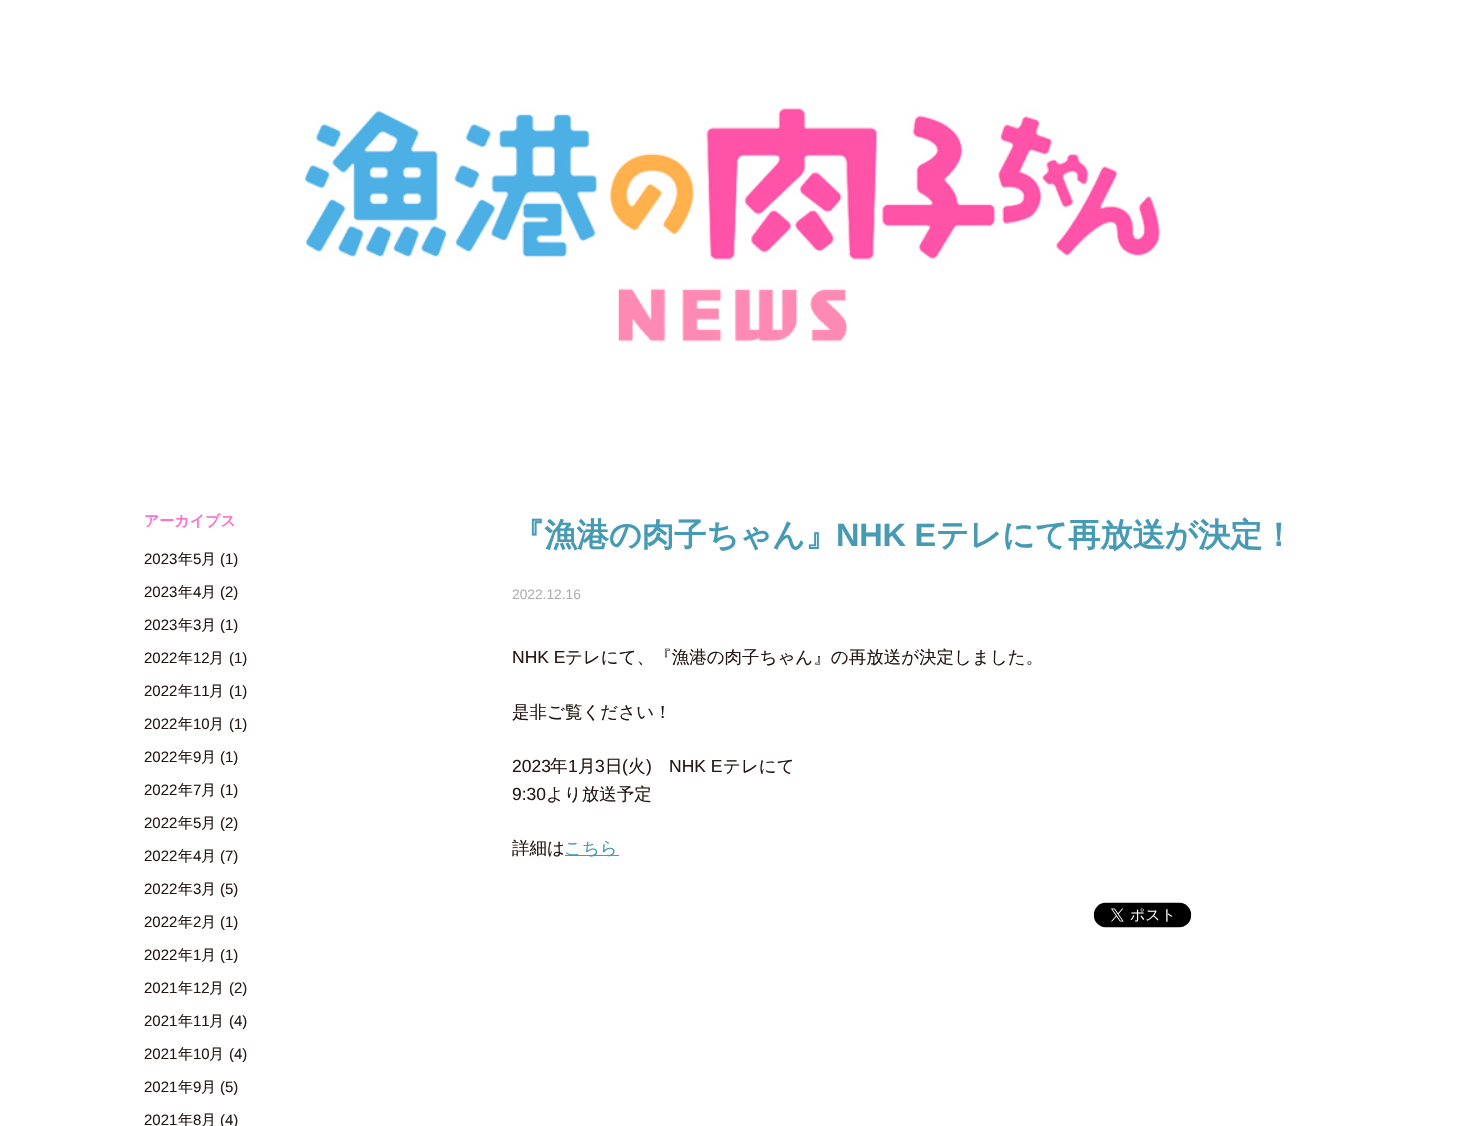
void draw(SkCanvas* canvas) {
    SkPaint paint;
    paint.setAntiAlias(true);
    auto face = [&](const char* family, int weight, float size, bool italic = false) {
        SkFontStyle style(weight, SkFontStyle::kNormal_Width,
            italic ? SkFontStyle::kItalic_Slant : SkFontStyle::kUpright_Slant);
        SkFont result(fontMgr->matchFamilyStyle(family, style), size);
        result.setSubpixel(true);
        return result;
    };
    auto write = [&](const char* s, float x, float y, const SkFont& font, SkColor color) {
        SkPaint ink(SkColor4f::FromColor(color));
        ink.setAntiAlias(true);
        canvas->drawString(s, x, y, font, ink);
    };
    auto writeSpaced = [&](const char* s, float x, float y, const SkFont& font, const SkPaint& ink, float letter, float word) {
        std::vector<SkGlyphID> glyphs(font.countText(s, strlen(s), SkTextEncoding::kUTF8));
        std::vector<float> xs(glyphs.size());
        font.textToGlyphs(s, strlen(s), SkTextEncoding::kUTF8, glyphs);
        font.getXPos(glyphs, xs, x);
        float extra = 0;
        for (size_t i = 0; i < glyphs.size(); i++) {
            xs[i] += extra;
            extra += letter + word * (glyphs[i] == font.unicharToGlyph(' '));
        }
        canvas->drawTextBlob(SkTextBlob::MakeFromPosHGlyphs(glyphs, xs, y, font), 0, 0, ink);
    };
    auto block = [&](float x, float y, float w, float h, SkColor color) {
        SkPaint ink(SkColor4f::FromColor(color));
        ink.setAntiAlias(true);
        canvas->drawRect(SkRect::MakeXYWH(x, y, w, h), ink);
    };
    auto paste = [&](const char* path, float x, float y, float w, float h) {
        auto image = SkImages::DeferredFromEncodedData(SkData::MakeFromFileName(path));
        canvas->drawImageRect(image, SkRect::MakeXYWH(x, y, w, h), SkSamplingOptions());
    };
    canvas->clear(SK_ColorWHITE);
    paste("pic1.png", 304, 107, 857, 235);
    auto kFont1 = face("WenQuanYi Zen Hei", 700, 15);
    write("アーカイブス", 144, 526, kFont1, SkColorSetRGB(255, 110, 201));
    auto kFont2 = face("Liberation Sans", 400, 15);
    write("2023", 144, 564, kFont2, SkColorSetRGB(35, 24, 22));
    auto kFont3 = face("WenQuanYi Zen Hei", 500, 15);
    write("年", 178, 564, kFont3, SkColorSetRGB(35, 24, 22));
    write("5", 193, 564, kFont2, SkColorSetRGB(35, 24, 22));
    write("月", 201, 564, kFont3, SkColorSetRGB(35, 24, 22));
    write("(1)", 220, 564, kFont2, SkColorSetRGB(35, 24, 22));
    write("2023", 144, 597, kFont2, SkColorSetRGB(35, 24, 22));
    write("年", 178, 597, kFont3, SkColorSetRGB(35, 24, 22));
    write("4", 193, 597, kFont2, SkColorSetRGB(35, 24, 22));
    write("月", 201, 597, kFont3, SkColorSetRGB(35, 24, 22));
    write("(2)", 220, 597, kFont2, SkColorSetRGB(35, 24, 22));
    write("2023", 144, 630, kFont2, SkColorSetRGB(35, 24, 22));
    write("年", 178, 630, kFont3, SkColorSetRGB(35, 24, 22));
    write("3", 193, 630, kFont2, SkColorSetRGB(35, 24, 22));
    write("月", 201, 630, kFont3, SkColorSetRGB(35, 24, 22));
    write("(1)", 220, 630, kFont2, SkColorSetRGB(35, 24, 22));
    write("2022", 144, 663, kFont2, SkColorSetRGB(35, 24, 22));
    write("年", 178, 663, kFont3, SkColorSetRGB(35, 24, 22));
    write("12", 193, 663, kFont2, SkColorSetRGB(35, 24, 22));
    write("月", 209, 663, kFont3, SkColorSetRGB(35, 24, 22));
    write("(1)", 229, 663, kFont2, SkColorSetRGB(35, 24, 22));
    write("2022", 144, 696, kFont2, SkColorSetRGB(35, 24, 22));
    write("年", 178, 696, kFont3, SkColorSetRGB(35, 24, 22));
    write("11", 193, 696, kFont2, SkColorSetRGB(35, 24, 22));
    write("月", 209, 696, kFont3, SkColorSetRGB(35, 24, 22));
    write("(1)", 229, 696, kFont2, SkColorSetRGB(35, 24, 22));
    write("2022", 144, 729, kFont2, SkColorSetRGB(35, 24, 22));
    write("年", 178, 729, kFont3, SkColorSetRGB(35, 24, 22));
    write("10", 193, 729, kFont2, SkColorSetRGB(35, 24, 22));
    write("月", 209, 729, kFont3, SkColorSetRGB(35, 24, 22));
    write("(1)", 229, 729, kFont2, SkColorSetRGB(35, 24, 22));
    write("2022", 144, 762, kFont2, SkColorSetRGB(35, 24, 22));
    write("年", 178, 762, kFont3, SkColorSetRGB(35, 24, 22));
    write("9", 193, 762, kFont2, SkColorSetRGB(35, 24, 22));
    write("月", 201, 762, kFont3, SkColorSetRGB(35, 24, 22));
    write("(1)", 220, 762, kFont2, SkColorSetRGB(35, 24, 22));
    write("2022", 144, 795, kFont2, SkColorSetRGB(35, 24, 22));
    write("年", 178, 795, kFont3, SkColorSetRGB(35, 24, 22));
    write("7", 193, 795, kFont2, SkColorSetRGB(35, 24, 22));
    write("月", 201, 795, kFont3, SkColorSetRGB(35, 24, 22));
    write("(1)", 220, 795, kFont2, SkColorSetRGB(35, 24, 22));
    write("2022", 144, 828, kFont2, SkColorSetRGB(35, 24, 22));
    write("年", 178, 828, kFont3, SkColorSetRGB(35, 24, 22));
    write("5", 193, 828, kFont2, SkColorSetRGB(35, 24, 22));
    write("月", 201, 828, kFont3, SkColorSetRGB(35, 24, 22));
    write("(2)", 220, 828, kFont2, SkColorSetRGB(35, 24, 22));
    write("2022", 144, 861, kFont2, SkColorSetRGB(35, 24, 22));
    write("年", 178, 861, kFont3, SkColorSetRGB(35, 24, 22));
    write("4", 193, 861, kFont2, SkColorSetRGB(35, 24, 22));
    write("月", 201, 861, kFont3, SkColorSetRGB(35, 24, 22));
    write("(7)", 220, 861, kFont2, SkColorSetRGB(35, 24, 22));
    write("2022", 144, 894, kFont2, SkColorSetRGB(35, 24, 22));
    write("年", 178, 894, kFont3, SkColorSetRGB(35, 24, 22));
    write("3", 193, 894, kFont2, SkColorSetRGB(35, 24, 22));
    write("月", 201, 894, kFont3, SkColorSetRGB(35, 24, 22));
    write("(5)", 220, 894, kFont2, SkColorSetRGB(35, 24, 22));
    write("2022", 144, 927, kFont2, SkColorSetRGB(35, 24, 22));
    write("年", 178, 927, kFont3, SkColorSetRGB(35, 24, 22));
    write("2", 193, 927, kFont2, SkColorSetRGB(35, 24, 22));
    write("月", 201, 927, kFont3, SkColorSetRGB(35, 24, 22));
    write("(1)", 220, 927, kFont2, SkColorSetRGB(35, 24, 22));
    write("2022", 144, 960, kFont2, SkColorSetRGB(35, 24, 22));
    write("年", 178, 960, kFont3, SkColorSetRGB(35, 24, 22));
    write("1", 193, 960, kFont2, SkColorSetRGB(35, 24, 22));
    write("月", 201, 960, kFont3, SkColorSetRGB(35, 24, 22));
    write("(1)", 220, 960, kFont2, SkColorSetRGB(35, 24, 22));
    write("2021", 144, 993, kFont2, SkColorSetRGB(35, 24, 22));
    write("年", 178, 993, kFont3, SkColorSetRGB(35, 24, 22));
    write("12", 193, 993, kFont2, SkColorSetRGB(35, 24, 22));
    write("月", 209, 993, kFont3, SkColorSetRGB(35, 24, 22));
    write("(2)", 229, 993, kFont2, SkColorSetRGB(35, 24, 22));
    write("2021", 144, 1026, kFont2, SkColorSetRGB(35, 24, 22));
    write("年", 178, 1026, kFont3, SkColorSetRGB(35, 24, 22));
    write("11", 193, 1026, kFont2, SkColorSetRGB(35, 24, 22));
    write("月", 209, 1026, kFont3, SkColorSetRGB(35, 24, 22));
    write("(4)", 229, 1026, kFont2, SkColorSetRGB(35, 24, 22));
    write("2021", 144, 1059, kFont2, SkColorSetRGB(35, 24, 22));
    write("年", 178, 1059, kFont3, SkColorSetRGB(35, 24, 22));
    write("10", 193, 1059, kFont2, SkColorSetRGB(35, 24, 22));
    write("月", 209, 1059, kFont3, SkColorSetRGB(35, 24, 22));
    write("(4)", 229, 1059, kFont2, SkColorSetRGB(35, 24, 22));
    write("2021", 144, 1092, kFont2, SkColorSetRGB(35, 24, 22));
    write("年", 178, 1092, kFont3, SkColorSetRGB(35, 24, 22));
    write("9", 193, 1092, kFont2, SkColorSetRGB(35, 24, 22));
    write("月", 201, 1092, kFont3, SkColorSetRGB(35, 24, 22));
    write("(5)", 220, 1092, kFont2, SkColorSetRGB(35, 24, 22));
    write("2021", 144, 1125, kFont2, SkColorSetRGB(35, 24, 22));
    write("年", 178, 1125, kFont3, SkColorSetRGB(35, 24, 22));
    write("8", 193, 1125, kFont2, SkColorSetRGB(35, 24, 22));
    write("月", 201, 1125, kFont3, SkColorSetRGB(35, 24, 22));
    write("(4)", 220, 1125, kFont2, SkColorSetRGB(35, 24, 22));
    auto kFont4 = face("WenQuanYi Zen Hei", 700, 32.5f);
    paint.setColor(SkColorSetRGB(70, 154, 180));
    writeSpaced("『漁港の肉子ちゃん』", 512, 546, kFont4, paint, -0.25f, 0);
    auto kFont5 = face("Liberation Sans", 700, 32.5f);
    writeSpaced("NHK E", 836, 546, kFont5, paint, -0.25f, 0);
    writeSpaced("テレにて再放送が決定！", 936, 546, kFont4, paint, -0.25f, 0);
    auto kFont6 = face("Liberation Sans", 400, 13.75f);
    write("2022.12.16", 512, 599, kFont6, SkColorSetRGB(175, 175, 175));
    auto kFont7 = face("Liberation Sans", 400, 17.5f);
    write("NHK E", 512, 663, kFont7, SkColorSetRGB(35, 24, 22));
    auto kFont8 = face("WenQuanYi Zen Hei", 500, 17.5f);
    write("テレにて、『漁港の肉子ちゃん』の再放送が決定しました。", 565, 663, kFont8, SkColorSetRGB(35, 24, 22));
    write("是非ご覧ください！", 512, 718, kFont8, SkColorSetRGB(35, 24, 22));
    write("2023", 512, 772, kFont7, SkColorSetRGB(35, 24, 22));
    write("年", 550, 772, kFont8, SkColorSetRGB(35, 24, 22));
    write("1", 568, 772, kFont7, SkColorSetRGB(35, 24, 22));
    write("月", 578, 772, kFont8, SkColorSetRGB(35, 24, 22));
    write("3", 595, 772, kFont7, SkColorSetRGB(35, 24, 22));
    write("日", 605, 772, kFont8, SkColorSetRGB(35, 24, 22));
    write("(", 622, 772, kFont7, SkColorSetRGB(35, 24, 22));
    write("火", 628, 772, kFont8, SkColorSetRGB(35, 24, 22));
    write(")", 646, 772, kFont7, SkColorSetRGB(35, 24, 22));
    write("NHK E", 669, 772, kFont7, SkColorSetRGB(35, 24, 22));
    write("テレにて", 723, 772, kFont8, SkColorSetRGB(35, 24, 22));
    write("9:30", 512, 800, kFont7, SkColorSetRGB(35, 24, 22));
    write("より放送予定", 546, 800, kFont8, SkColorSetRGB(35, 24, 22));
    write("詳細は", 512, 854, kFont8, SkColorSetRGB(35, 24, 22));
    block(565, 855, 54, 1, SkColorSetRGB(70, 154, 180));
    write("こちら", 564, 854, kFont8, SkColorSetRGB(70, 154, 180));
    paste("pic2.png", 1093, 902, 99, 26);
}
